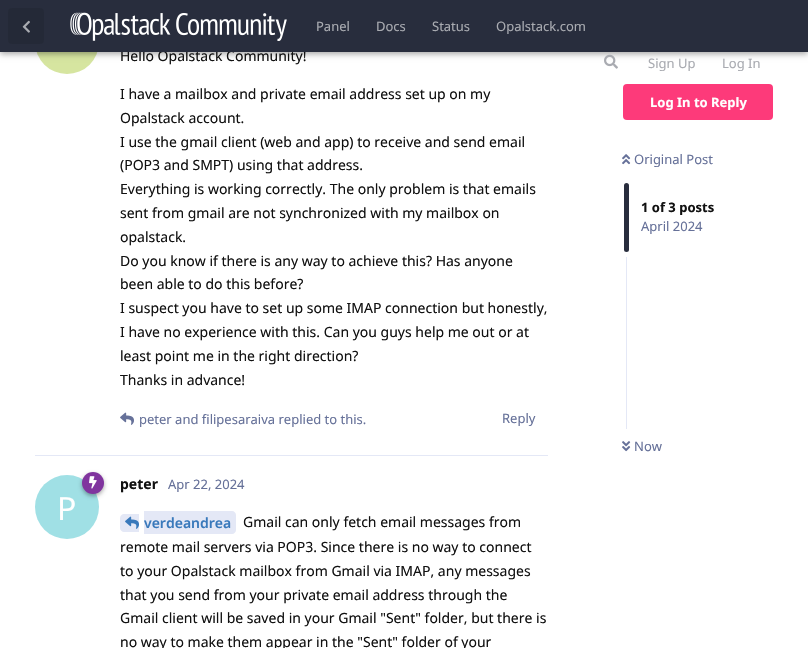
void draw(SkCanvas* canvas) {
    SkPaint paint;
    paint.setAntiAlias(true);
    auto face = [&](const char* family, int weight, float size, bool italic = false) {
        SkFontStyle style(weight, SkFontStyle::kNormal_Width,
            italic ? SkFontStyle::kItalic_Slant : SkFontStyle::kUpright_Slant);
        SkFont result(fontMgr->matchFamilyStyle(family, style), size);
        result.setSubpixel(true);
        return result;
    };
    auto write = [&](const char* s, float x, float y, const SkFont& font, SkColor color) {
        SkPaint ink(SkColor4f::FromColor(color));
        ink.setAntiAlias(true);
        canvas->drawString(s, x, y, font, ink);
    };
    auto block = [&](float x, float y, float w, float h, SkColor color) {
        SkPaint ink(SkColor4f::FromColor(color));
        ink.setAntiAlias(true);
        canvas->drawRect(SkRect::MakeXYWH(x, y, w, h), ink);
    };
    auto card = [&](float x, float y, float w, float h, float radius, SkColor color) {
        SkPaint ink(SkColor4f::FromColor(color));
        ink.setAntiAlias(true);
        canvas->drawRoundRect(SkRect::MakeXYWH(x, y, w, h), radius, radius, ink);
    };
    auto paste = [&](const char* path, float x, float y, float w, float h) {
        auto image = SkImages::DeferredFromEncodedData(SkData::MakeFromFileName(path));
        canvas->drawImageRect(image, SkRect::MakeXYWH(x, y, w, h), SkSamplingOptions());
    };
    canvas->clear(SK_ColorWHITE);
    paint.setColor(SkColorSetRGB(214, 229, 160));
    canvas->drawCircle(67, 42, 32, paint);
    paint.setColor(SkColorSetARGB(89, 0, 0, 0));
    paint.setMaskFilter(SkMaskFilter::MakeBlur(kNormal_SkBlurStyle, 3));
    canvas->drawRect(SkRect::MakeXYWH(0, 2, 808, 52), paint);
    paint.setMaskFilter(nullptr);
    auto kFont1 = face("Noto Sans", 400, 14);
    write("Hello Opalstack Community!", 120, 61, kFont1, SkColorSetRGB(17, 17, 17));
    block(0, 0, 808, 52, SkColorSetRGB(40, 45, 61));
    card(8, 8, 36, 36, 4, SkColorSetRGB(36, 41, 55));
    paste("pic1.png", 22, 20, 8, 13);
    paste("pic2.png", 70, 12, 217, 29);
    auto kFont2 = face("Noto Sans", 400, 13);
    write("Panel", 316, 31, kFont2, SkColorSetRGB(169, 171, 177));
    write("Docs", 376, 31, kFont2, SkColorSetRGB(169, 171, 177));
    write("Status", 432, 31, kFont2, SkColorSetRGB(169, 171, 177));
    write("Opalstack.com", 496, 31, kFont2, SkColorSetRGB(169, 171, 177));
    paste("pic3.png", 604, 54, 14, 15);
    write("Sign Up", 648, 68, kFont2, SkColorSetRGB(169, 171, 177));
    write("Log In", 722, 68, kFont2, SkColorSetRGB(169, 171, 177));
    block(35, 455, 513, 1, SkColorSetRGB(228, 232, 246));
    write("I have a mailbox and private email address set up on my", 120, 99, kFont1, SkColorSetRGB(17, 17, 17));
    write("Opalstack account.", 120, 123, kFont1, SkColorSetRGB(17, 17, 17));
    write("I use the gmail client (web and app) to receive and send email", 120, 147, kFont1, SkColorSetRGB(17, 17, 17));
    write("(POP3 and SMPT) using that address.", 120, 170, kFont1, SkColorSetRGB(17, 17, 17));
    write("Everything is working correctly. The only problem is that emails", 120, 194, kFont1, SkColorSetRGB(17, 17, 17));
    write("sent from gmail are not synchronized with my mailbox on", 120, 218, kFont1, SkColorSetRGB(17, 17, 17));
    write("opalstack.", 120, 242, kFont1, SkColorSetRGB(17, 17, 17));
    write("Do you know if there is any way to achieve this? Has anyone", 120, 266, kFont1, SkColorSetRGB(17, 17, 17));
    write("been able to do this before?", 120, 289, kFont1, SkColorSetRGB(17, 17, 17));
    write("I suspect you have to set up some IMAP connection but honestly,", 120, 313, kFont1, SkColorSetRGB(17, 17, 17));
    write("I have no experience with this. Can you guys help me out or at", 120, 337, kFont1, SkColorSetRGB(17, 17, 17));
    write("least point me in the right direction?", 120, 361, kFont1, SkColorSetRGB(17, 17, 17));
    write("Thanks in advance!", 120, 385, kFont1, SkColorSetRGB(17, 17, 17));
    paste("pic4.png", 120, 412, 14, 13);
    write("peter and filipesaraiva replied to this.", 139, 424, kFont2, SkColorSetRGB(102, 113, 153));
    write("Reply", 502, 423, kFont2, SkColorSetRGB(102, 113, 153));
    paint.setColor(SkColorSetRGB(160, 224, 229));
    canvas->drawCircle(67, 507, 32, paint);
    paint.setColor(SkColorSetARGB(89, 0, 0, 0));
    paint.setMaskFilter(SkMaskFilter::MakeBlur(kNormal_SkBlurStyle, 2));
    canvas->drawRoundRect(SkRect::MakeXYWH(82, 474, 22, 22), 11, 11, paint);
    paint.setMaskFilter(nullptr);
    paint.setColor(SkColorSetRGB(128, 52, 158));
    canvas->drawCircle(93, 483, 11, paint);
    paste("pic5.png", 89, 476, 8, 13);
    auto kFont3 = face("Noto Sans", 700, 14);
    write("peter", 120, 489, kFont3, SkColorSetRGB(17, 17, 17));
    auto kFont4 = face("Noto Sans", 400, 32);
    write("P", 57, 520, kFont4, SK_ColorWHITE);
    write("Apr 22, 2024", 168, 489, kFont2, SkColorSetRGB(102, 113, 153));
    paint.setColor(SkColorSetRGB(228, 232, 246));
    canvas->drawPath(SkPathBuilder().moveTo(124, 514).lineTo(139, 514).lineTo(139, 532).lineTo(124, 532).cubicTo(122, 532, 120, 530, 120, 528).lineTo(120, 518).cubicTo(120, 516, 122, 514, 124, 514).close().detach(), paint);
    canvas->drawPath(SkPathBuilder().moveTo(144, 511).lineTo(232, 511).cubicTo(234, 511, 236, 513, 236, 515).lineTo(236, 530).cubicTo(236, 532, 234, 534, 232, 534).lineTo(144, 534).close().detach(), paint);
    paste("pic6.png", 125, 516, 14, 13);
    auto kFont5 = face("Noto Sans", 600, 14);
    write("verdeandrea", 144, 528, kFont5, SkColorSetRGB(57, 121, 187));
    write("Gmail can only fetch email messages from", 243, 527, kFont1, SkColorSetRGB(17, 17, 17));
    write("remote mail servers via POP3. Since there is no way to connect", 120, 552, kFont1, SkColorSetRGB(17, 17, 17));
    write("to your Opalstack mailbox from Gmail via IMAP, any messages", 120, 576, kFont1, SkColorSetRGB(17, 17, 17));
    write("that you send from your private email address through the", 120, 600, kFont1, SkColorSetRGB(17, 17, 17));
    write("Gmail client will be saved in your Gmail \"Sent\" folder, but there is", 120, 623, kFont1, SkColorSetRGB(17, 17, 17));
    write("no way to make them appear in the \"Sent\" folder of your", 120, 647, kFont1, SkColorSetRGB(17, 17, 17));
    card(623, 84, 150, 36, 4, SkColorSetRGB(253, 58, 122));
    auto kFont6 = face("Noto Sans", 700, 13);
    write("Log In to Reply", 650, 107, kFont6, SK_ColorWHITE);
    paste("pic7.png", 622, 154, 9, 11);
    write("Original Post", 634, 164, kFont2, SkColorSetRGB(102, 113, 153));
    card(624, 183, 5, 69, 2.5f, SkColorSetRGB(40, 45, 61));
    write("1 of 3 posts", 641, 212, kFont6, SkColorSetRGB(17, 17, 17));
    write("April 2024", 641, 231, kFont2, SkColorSetRGB(102, 113, 153));
    block(626, 257, 1, 172, SkColorSetRGB(228, 232, 246));
    paste("pic8.png", 622, 441, 9, 11);
    write("Now", 634, 451, kFont2, SkColorSetRGB(102, 113, 153));
}
